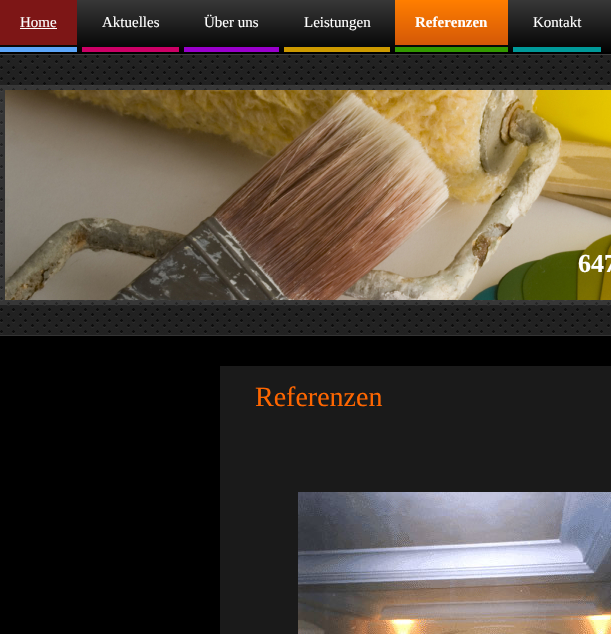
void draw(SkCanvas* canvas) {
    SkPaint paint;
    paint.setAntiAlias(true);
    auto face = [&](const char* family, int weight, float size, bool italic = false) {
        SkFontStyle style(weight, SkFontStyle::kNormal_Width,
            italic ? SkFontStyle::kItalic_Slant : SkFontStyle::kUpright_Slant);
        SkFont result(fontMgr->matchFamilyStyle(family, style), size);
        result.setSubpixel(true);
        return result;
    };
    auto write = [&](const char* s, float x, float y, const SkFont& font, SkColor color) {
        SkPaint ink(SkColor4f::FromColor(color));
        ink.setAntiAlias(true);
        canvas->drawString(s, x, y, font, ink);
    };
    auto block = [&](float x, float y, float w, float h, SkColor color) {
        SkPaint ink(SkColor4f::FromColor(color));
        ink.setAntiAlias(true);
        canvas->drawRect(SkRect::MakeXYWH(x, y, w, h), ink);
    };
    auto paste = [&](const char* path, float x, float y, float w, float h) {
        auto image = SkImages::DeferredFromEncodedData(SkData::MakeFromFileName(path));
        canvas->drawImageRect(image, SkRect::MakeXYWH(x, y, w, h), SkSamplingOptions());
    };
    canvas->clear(SK_ColorBLACK);
    {
        const SkColor colors[] = {SkColorSetRGB(56, 56, 56), SK_ColorBLACK};
        const float stops[] = {0, 1};
        const SkPoint ends[] = {{306, 0}, {306, 54}};
        paint.setShader(SkGradientShader::MakeLinear(ends, colors, stops, 2, SkTileMode::kClamp));
        paint.setAlpha(255);
    }
    canvas->drawRect(SkRect::MakeXYWH(0, 0, 611, 52), paint);
    block(0, 54, 611, 1, SkColorSetRGB(61, 61, 61));
    block(0, 47, 77, 5, SkColorSetRGB(92, 166, 250));
    block(0, 0, 77, 45, SkColorSetRGB(125, 22, 22));
    auto kFont1 = face("Liberation Serif", 400, 15);
    write("Home", 20, 27, kFont1, SK_ColorWHITE);
    block(20, 28, 37, 1, SK_ColorWHITE);
    block(82, 47, 97, 5, SkColorSetRGB(204, 0, 102));
    write("Aktuelles", 102, 27, kFont1, SK_ColorWHITE);
    block(184, 47, 95, 5, SkColorSetRGB(153, 0, 204));
    write("Über uns", 204, 27, kFont1, SK_ColorWHITE);
    block(284, 47, 106, 5, SkColorSetRGB(204, 153, 0));
    write("Leistungen", 304, 27, kFont1, SK_ColorWHITE);
    block(395, 47, 113, 5, SkColorSetRGB(51, 153, 0));
    {
        const SkColor colors[] = {SkColorSetRGB(255, 126, 0), SkColorSetRGB(212, 88, 7)};
        const float stops[] = {0, 1};
        const SkPoint ends[] = {{452, 0}, {452, 45}};
        paint.setShader(SkGradientShader::MakeLinear(ends, colors, stops, 2, SkTileMode::kClamp));
        paint.setAlpha(255);
    }
    canvas->drawRect(SkRect::MakeXYWH(395, 0, 113, 45), paint);
    auto kFont2 = face("Liberation Serif", 700, 15);
    write("Referenzen", 415, 27, kFont2, SK_ColorWHITE);
    block(513, 47, 88, 5, SkColorSetRGB(0, 153, 153));
    write("Kontakt", 533, 27, kFont1, SK_ColorWHITE);
    paste("pic1.png", 0, 55, 611, 280);
    block(0, 335, 611, 1, SkColorSetRGB(53, 53, 53));
    paint.setStyle(SkPaint::kStroke_Style);
    paint.setStrokeWidth(5);
    paint.setShader(nullptr);
    paint.setColor(SkColorSetARGB(26, 255, 255, 255));
    canvas->drawRect(SkRect::MakeXYWH(2.5f, 87.5f, 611, 215), paint);
    paste("pic2.png", 5, 90, 606, 210);
    auto kFont3 = face("Liberation Serif", 700, 26);
    write("647", 578, 272, kFont3, SK_ColorWHITE);
    block(220, 366, 391, 268, SkColorSetRGB(26, 26, 26));
    auto kFont4 = face("Liberation Serif", 400, 28);
    write("Referenzen", 255, 406, kFont4, SkColorSetRGB(255, 102, 0));
    paste("pic3.png", 298, 492, 313, 142);
}
